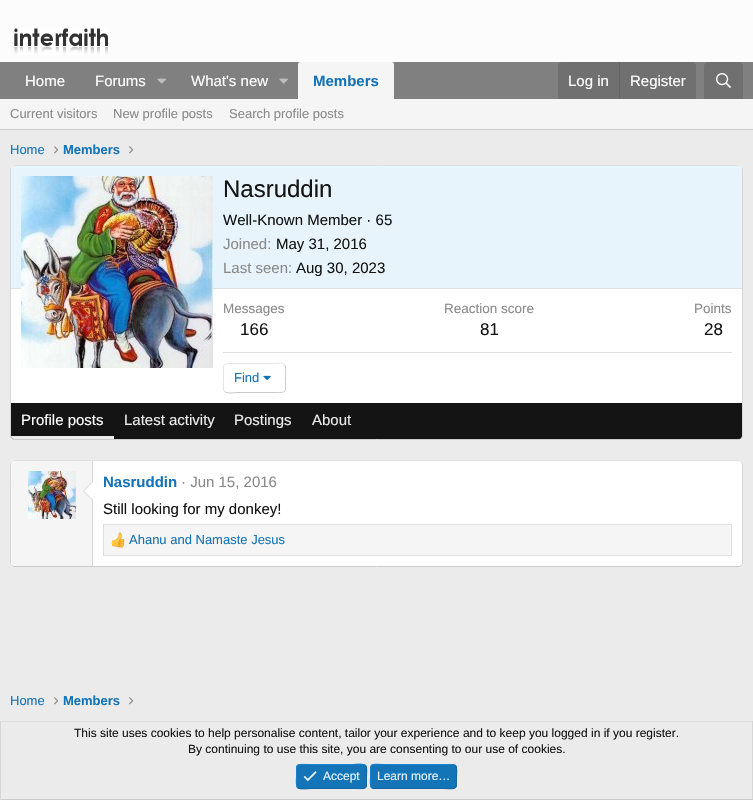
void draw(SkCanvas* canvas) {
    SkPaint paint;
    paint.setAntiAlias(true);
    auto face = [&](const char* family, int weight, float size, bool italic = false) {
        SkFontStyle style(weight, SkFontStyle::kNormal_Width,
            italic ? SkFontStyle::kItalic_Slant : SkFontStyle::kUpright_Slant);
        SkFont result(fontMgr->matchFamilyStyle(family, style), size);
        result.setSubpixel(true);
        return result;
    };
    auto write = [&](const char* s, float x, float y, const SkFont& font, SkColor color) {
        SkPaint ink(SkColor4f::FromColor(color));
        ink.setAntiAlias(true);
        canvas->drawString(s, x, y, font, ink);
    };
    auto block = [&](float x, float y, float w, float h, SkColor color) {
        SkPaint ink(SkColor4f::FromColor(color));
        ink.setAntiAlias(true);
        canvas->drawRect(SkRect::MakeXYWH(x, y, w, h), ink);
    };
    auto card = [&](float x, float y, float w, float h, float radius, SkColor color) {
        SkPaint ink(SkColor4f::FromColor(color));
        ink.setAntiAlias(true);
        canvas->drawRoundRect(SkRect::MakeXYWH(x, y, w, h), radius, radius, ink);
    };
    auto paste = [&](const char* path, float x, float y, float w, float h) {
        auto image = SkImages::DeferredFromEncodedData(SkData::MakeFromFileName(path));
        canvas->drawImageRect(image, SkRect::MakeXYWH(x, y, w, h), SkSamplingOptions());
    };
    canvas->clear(SkColorSetRGB(235, 235, 235));
    block(0, 0, 753, 62, SkColorSetRGB(252, 252, 252));
    paste("pic1.png", 14, 28, 94, 27);
    block(0, 62, 753, 37, SkColorSetRGB(128, 128, 128));
    auto kFont1 = face("Liberation Sans", 400, 15);
    write("Home", 25, 86, kFont1, SK_ColorWHITE);
    write("Forums", 95, 86, kFont1, SK_ColorWHITE);
    paste("pic2.png", 157, 78, 9, 6);
    write("What's new", 191, 86, kFont1, SK_ColorWHITE);
    paste("pic2.png", 279, 78, 9, 6);
    paint.setColor(SkColorSetRGB(245, 245, 245));
    canvas->drawPath(SkPathBuilder().moveTo(300, 62).lineTo(392, 62).cubicTo(393, 62, 394, 63, 394, 64).lineTo(394, 99).lineTo(298, 99).lineTo(298, 64).cubicTo(298, 63, 299, 62, 300, 62).close().detach(), paint);
    auto kFont2 = face("Liberation Sans", 700, 15);
    write("Members", 313, 86, kFont2, SkColorSetRGB(20, 116, 184));
    paint.setColor(SkColorSetRGB(112, 112, 112));
    canvas->drawPath(SkPathBuilder().moveTo(562, 62).lineTo(692, 62).cubicTo(694, 62, 696, 64, 696, 66).lineTo(696, 99).lineTo(558, 99).lineTo(558, 66).cubicTo(558, 64, 560, 62, 562, 62).close().detach(), paint);
    write("Log in", 568, 86, kFont1, SK_ColorWHITE);
    block(619, 62, 1, 37, SkColorSetRGB(98, 98, 98));
    write("Register", 630, 86, kFont1, SK_ColorWHITE);
    canvas->drawPath(SkPathBuilder().moveTo(708, 62).lineTo(739, 62).cubicTo(741, 62, 743, 64, 743, 66).lineTo(743, 99).lineTo(704, 99).lineTo(704, 66).cubicTo(704, 64, 706, 62, 708, 62).close().detach(), paint);
    paste("pic3.png", 716, 73, 15, 15);
    block(0, 99, 753, 30, SkColorSetRGB(245, 245, 245));
    block(0, 129, 753, 1, SkColorSetRGB(204, 204, 204));
    auto kFont3 = face("Liberation Sans", 400, 13);
    write("Current visitors", 10, 118, kFont3, SkColorSetRGB(138, 138, 138));
    write("New profile posts", 113, 118, kFont3, SkColorSetRGB(138, 138, 138));
    write("Search profile posts", 229, 118, kFont3, SkColorSetRGB(138, 138, 138));
    write("Home", 10, 154, kFont3, SkColorSetRGB(20, 116, 184));
    paste("pic4.png", 54, 146, 4, 8);
    auto kFont4 = face("Liberation Sans", 700, 13);
    write("Members", 63, 154, kFont4, SkColorSetRGB(20, 116, 184));
    paste("pic5.png", 129, 146, 5, 8);
    card(10, 165, 733, 275, 4, SK_ColorWHITE);
    paint.setStyle(SkPaint::kStroke_Style);
    paint.setStrokeWidth(1);
    paint.setColor(SkColorSetRGB(224, 224, 224));
    canvas->drawPath(SkPathBuilder().moveTo(11.5f, 166.5f).lineTo(14, 165.5f).lineTo(739, 165.5f).lineTo(741.5f, 166.5f).detach(), paint);
    paint.setColor(SkColorSetRGB(214, 214, 214));
    canvas->drawPath(SkPathBuilder().moveTo(741.5f, 166.5f).cubicTo(742, 167, 742.5f, 168, 742.5f, 169).lineTo(742.5f, 436).cubicTo(742.5f, 437, 742, 438, 741.5f, 438.5f).detach(), paint);
    paint.setColor(SkColorSetRGB(204, 204, 204));
    canvas->drawPath(SkPathBuilder().moveTo(741.5f, 438.5f).lineTo(739, 439.5f).lineTo(14, 439.5f).lineTo(11.5f, 438.5f).detach(), paint);
    paint.setColor(SkColorSetRGB(214, 214, 214));
    canvas->drawPath(SkPathBuilder().moveTo(11.5f, 438.5f).cubicTo(11, 438, 10.5f, 437, 10.5f, 436).lineTo(10.5f, 169).cubicTo(10.5f, 168, 11, 167, 11.5f, 166.5f).detach(), paint);
    paint.setStyle(SkPaint::kFill_Style);
    paint.setColor(SkColorSetRGB(232, 244, 252));
    canvas->drawPath(SkPathBuilder().moveTo(14, 166).lineTo(739, 166).cubicTo(740.5f, 166, 742, 167.5f, 742, 169).lineTo(742, 289).lineTo(11, 289).lineTo(11, 169).cubicTo(11, 167.5f, 12.5f, 166, 14, 166).close().detach(), paint);
    block(11, 288, 731, 1, SkColorSetRGB(224, 224, 224));
    paste("pic6.png", 21, 176, 192, 192);
    auto kFont5 = face("Liberation Sans", 400, 24);
    write("Nasruddin", 223, 197, kFont5, SkColorSetRGB(20, 20, 20));
    write("Well-Known Member · 65", 223, 225, kFont1, SkColorSetRGB(20, 20, 20));
    write("Joined:", 223, 249, kFont1, SkColorSetRGB(138, 138, 138));
    write("May 31, 2016", 276, 249, kFont1, SkColorSetRGB(20, 20, 20));
    write("Last seen:", 223, 273, kFont1, SkColorSetRGB(138, 138, 138));
    write("Aug 30, 2023", 296, 273, kFont1, SkColorSetRGB(20, 20, 20));
    auto kFont6 = face("Liberation Sans", 400, 13.5f);
    write("Messages", 223, 313, kFont6, SkColorSetRGB(138, 138, 138));
    auto kFont7 = face("Liberation Sans", 400, 17);
    write("166", 240, 335, kFont7, SkColorSetRGB(20, 20, 20));
    write("Reaction score", 444, 313, kFont6, SkColorSetRGB(138, 138, 138));
    write("81", 480, 335, kFont7, SkColorSetRGB(20, 20, 20));
    write("Points", 694, 313, kFont6, SkColorSetRGB(138, 138, 138));
    write("28", 704, 335, kFont7, SkColorSetRGB(20, 20, 20));
    block(223, 352, 509, 1, SkColorSetRGB(224, 224, 224));
    paint.setStyle(SkPaint::kStroke_Style);
    paint.setColor(SkColorSetRGB(201, 201, 201));
    canvas->drawPath(SkPathBuilder().moveTo(284.5f, 364.5f).cubicTo(286.5f, 366.5f, 285.5f, 375, 285.5f, 378).cubicTo(285.5f, 393.5f, 288, 392.5f, 273, 392.5f).lineTo(236, 392.5f).cubicTo(235.5f, 392.5f, 227, 394, 224.5f, 391.5f).detach(), paint);
    paint.setColor(SkColorSetRGB(227, 227, 227));
    canvas->drawPath(SkPathBuilder().moveTo(224.5f, 391.5f).cubicTo(222.5f, 389.5f, 223.5f, 381, 223.5f, 378).cubicTo(223.5f, 362.5f, 221, 363.5f, 236, 363.5f).lineTo(273, 363.5f).cubicTo(273.5f, 363.5f, 282, 362, 284.5f, 364.5f).detach(), paint);
    write("Find", 234, 382, kFont3, SkColorSetRGB(20, 116, 184));
    paste("pic7.png", 263, 375, 8, 6);
    paint.setStyle(SkPaint::kFill_Style);
    paint.setColor(SkColorSetRGB(20, 20, 20));
    canvas->drawPath(SkPathBuilder().moveTo(11, 403).lineTo(742, 403).lineTo(742, 436).cubicTo(742, 437.5f, 740.5f, 439, 739, 439).lineTo(14, 439).cubicTo(12.5f, 439, 11, 437.5f, 11, 436).close().detach(), paint);
    paint.setColor(SkColorSetRGB(235, 235, 235));
    canvas->drawPath(SkPathBuilder().moveTo(11, 436).lineTo(114, 436).lineTo(114, 439).lineTo(14, 439).cubicTo(12.5f, 439, 11, 437.5f, 11, 436).close().detach(), paint);
    write("Profile posts", 21, 425, kFont1, SK_ColorWHITE);
    write("Latest activity", 124, 425, kFont1, SkColorSetRGB(235, 235, 235));
    write("Postings", 234, 425, kFont1, SkColorSetRGB(235, 235, 235));
    write("About", 312, 425, kFont1, SkColorSetRGB(235, 235, 235));
    card(10, 460, 733, 107, 4, SK_ColorWHITE);
    paint.setStyle(SkPaint::kStroke_Style);
    paint.setColor(SkColorSetRGB(224, 224, 224));
    canvas->drawPath(SkPathBuilder().moveTo(11.5f, 461.5f).lineTo(14, 460.5f).lineTo(739, 460.5f).lineTo(741.5f, 461.5f).detach(), paint);
    paint.setColor(SkColorSetRGB(214, 214, 214));
    canvas->drawPath(SkPathBuilder().moveTo(741.5f, 461.5f).lineTo(742.5f, 464).lineTo(742.5f, 563.5f).lineTo(741.5f, 565.5f).detach(), paint);
    paint.setColor(SkColorSetRGB(204, 204, 204));
    canvas->drawPath(SkPathBuilder().moveTo(741.5f, 565.5f).lineTo(739, 566.5f).lineTo(14, 566.5f).lineTo(11.5f, 565.5f).detach(), paint);
    paint.setColor(SkColorSetRGB(214, 214, 214));
    canvas->drawPath(SkPathBuilder().moveTo(11.5f, 565.5f).lineTo(10.5f, 563.5f).lineTo(10.5f, 480.5f).lineTo(10.5f, 464).lineTo(11.5f, 461.5f).detach(), paint);
    paint.setStyle(SkPaint::kFill_Style);
    paint.setColor(SkColorSetRGB(245, 245, 245));
    canvas->drawPath(SkPathBuilder().moveTo(14, 461).lineTo(93, 461).lineTo(93, 566).lineTo(14, 566).cubicTo(12.5f, 566, 11, 564.5f, 11, 563).lineTo(11, 464).cubicTo(11, 462.5f, 12.5f, 461, 14, 461).close().detach(), paint);
    block(92, 461, 1, 105, SkColorSetRGB(214, 214, 214));
    paste("pic8.png", 28, 471, 48, 48);
    paint.setColor(SkColorSetRGB(214, 214, 214));
    canvas->drawPath(SkPathBuilder().moveTo(93, 481).lineTo(93, 501).lineTo(83, 491).close().detach(), paint);
    paint.setColor(SK_ColorWHITE);
    canvas->drawPath(SkPathBuilder().moveTo(93, 482).lineTo(93, 500).lineTo(84, 491).close().detach(), paint);
    write("Nasruddin", 103, 487, kFont2, SkColorSetRGB(20, 116, 184));
    write("· Jun 15, 2016", 181, 487, kFont1, SkColorSetRGB(138, 138, 138));
    write("Still looking for my donkey!", 103, 514, kFont1, SkColorSetRGB(20, 20, 20));
    paint.setColor(SkColorSetRGB(245, 245, 245));
    canvas->drawRect(SkRect::MakeXYWH(103.5f, 524.5f, 628, 31), paint);
    paint.setStyle(SkPaint::kStroke_Style);
    paint.setColor(SkColorSetRGB(224, 224, 224));
    canvas->drawRect(SkRect::MakeXYWH(103.5f, 524.5f, 628, 31), paint);
    paste("pic9.png", 111, 532, 14, 16);
    write("Ahanu and Namaste Jesus", 129, 544, kFont3, SkColorSetRGB(20, 116, 184));
    write("Home", 10, 705, kFont3, SkColorSetRGB(20, 116, 184));
    paste("pic4.png", 54, 697, 4, 8);
    write("Members", 63, 705, kFont4, SkColorSetRGB(20, 116, 184));
    paste("pic5.png", 129, 697, 5, 8);
    block(0, 721, 753, 1, SkColorSetRGB(224, 224, 224));
    block(752, 721, 1, 79, SkColorSetRGB(214, 214, 214));
    block(0, 799, 753, 1, SkColorSetRGB(204, 204, 204));
    block(0, 721, 1, 79, SkColorSetRGB(214, 214, 214));
    auto kFont8 = face("Liberation Sans", 400, 12);
    write("This site uses cookies to help personalise content, tailor your experience and to keep you logged in if you register.", 74, 737, kFont8, SkColorSetRGB(20, 20, 20));
    write("By continuing to use this site, you are consenting to our use of cookies.", 188, 753, kFont8, SkColorSetRGB(20, 20, 20));
    card(296, 764, 71, 25, 4, SkColorSetRGB(20, 116, 184));
    paint.setColor(SkColorSetRGB(18, 101, 161));
    canvas->drawPath(SkPathBuilder().moveTo(365.5f, 765.5f).cubicTo(367.5f, 768, 366.5f, 774, 366.5f, 776.5f).cubicTo(366.5f, 790.5f, 367.5f, 788.5f, 352.5f, 788.5f).lineTo(310.5f, 788.5f).cubicTo(309.5f, 788.5f, 300, 790, 297.5f, 787.5f).detach(), paint);
    paint.setColor(SkColorSetRGB(23, 130, 207));
    canvas->drawPath(SkPathBuilder().moveTo(297.5f, 787.5f).cubicTo(295.5f, 785, 296.5f, 779, 296.5f, 776.5f).cubicTo(296.5f, 762.5f, 295.5f, 764.5f, 310.5f, 764.5f).lineTo(352.5f, 764.5f).cubicTo(353.5f, 764.5f, 363, 763, 365.5f, 765.5f).detach(), paint);
    paste("pic10.png", 303, 771, 14, 11);
    write("Accept", 323, 780, kFont8, SkColorSetRGB(232, 244, 252));
    card(370, 764, 87, 25, 4, SkColorSetRGB(20, 116, 184));
    paint.setColor(SkColorSetRGB(18, 101, 161));
    canvas->drawPath(SkPathBuilder().moveTo(455.5f, 765.5f).cubicTo(457.5f, 768, 456.5f, 774, 456.5f, 776.5f).cubicTo(456.5f, 791.5f, 457, 788.5f, 440, 788.5f).lineTo(374, 788.5f).lineTo(371.5f, 787.5f).detach(), paint);
    paint.setColor(SkColorSetRGB(23, 130, 207));
    canvas->drawPath(SkPathBuilder().moveTo(371.5f, 787.5f).cubicTo(369.5f, 785, 370.5f, 779, 370.5f, 776.5f).cubicTo(370.5f, 761.5f, 370, 764.5f, 387, 764.5f).lineTo(453, 764.5f).lineTo(455.5f, 765.5f).detach(), paint);
    write("Learn more…", 377, 780, kFont8, SkColorSetRGB(232, 244, 252));
}
